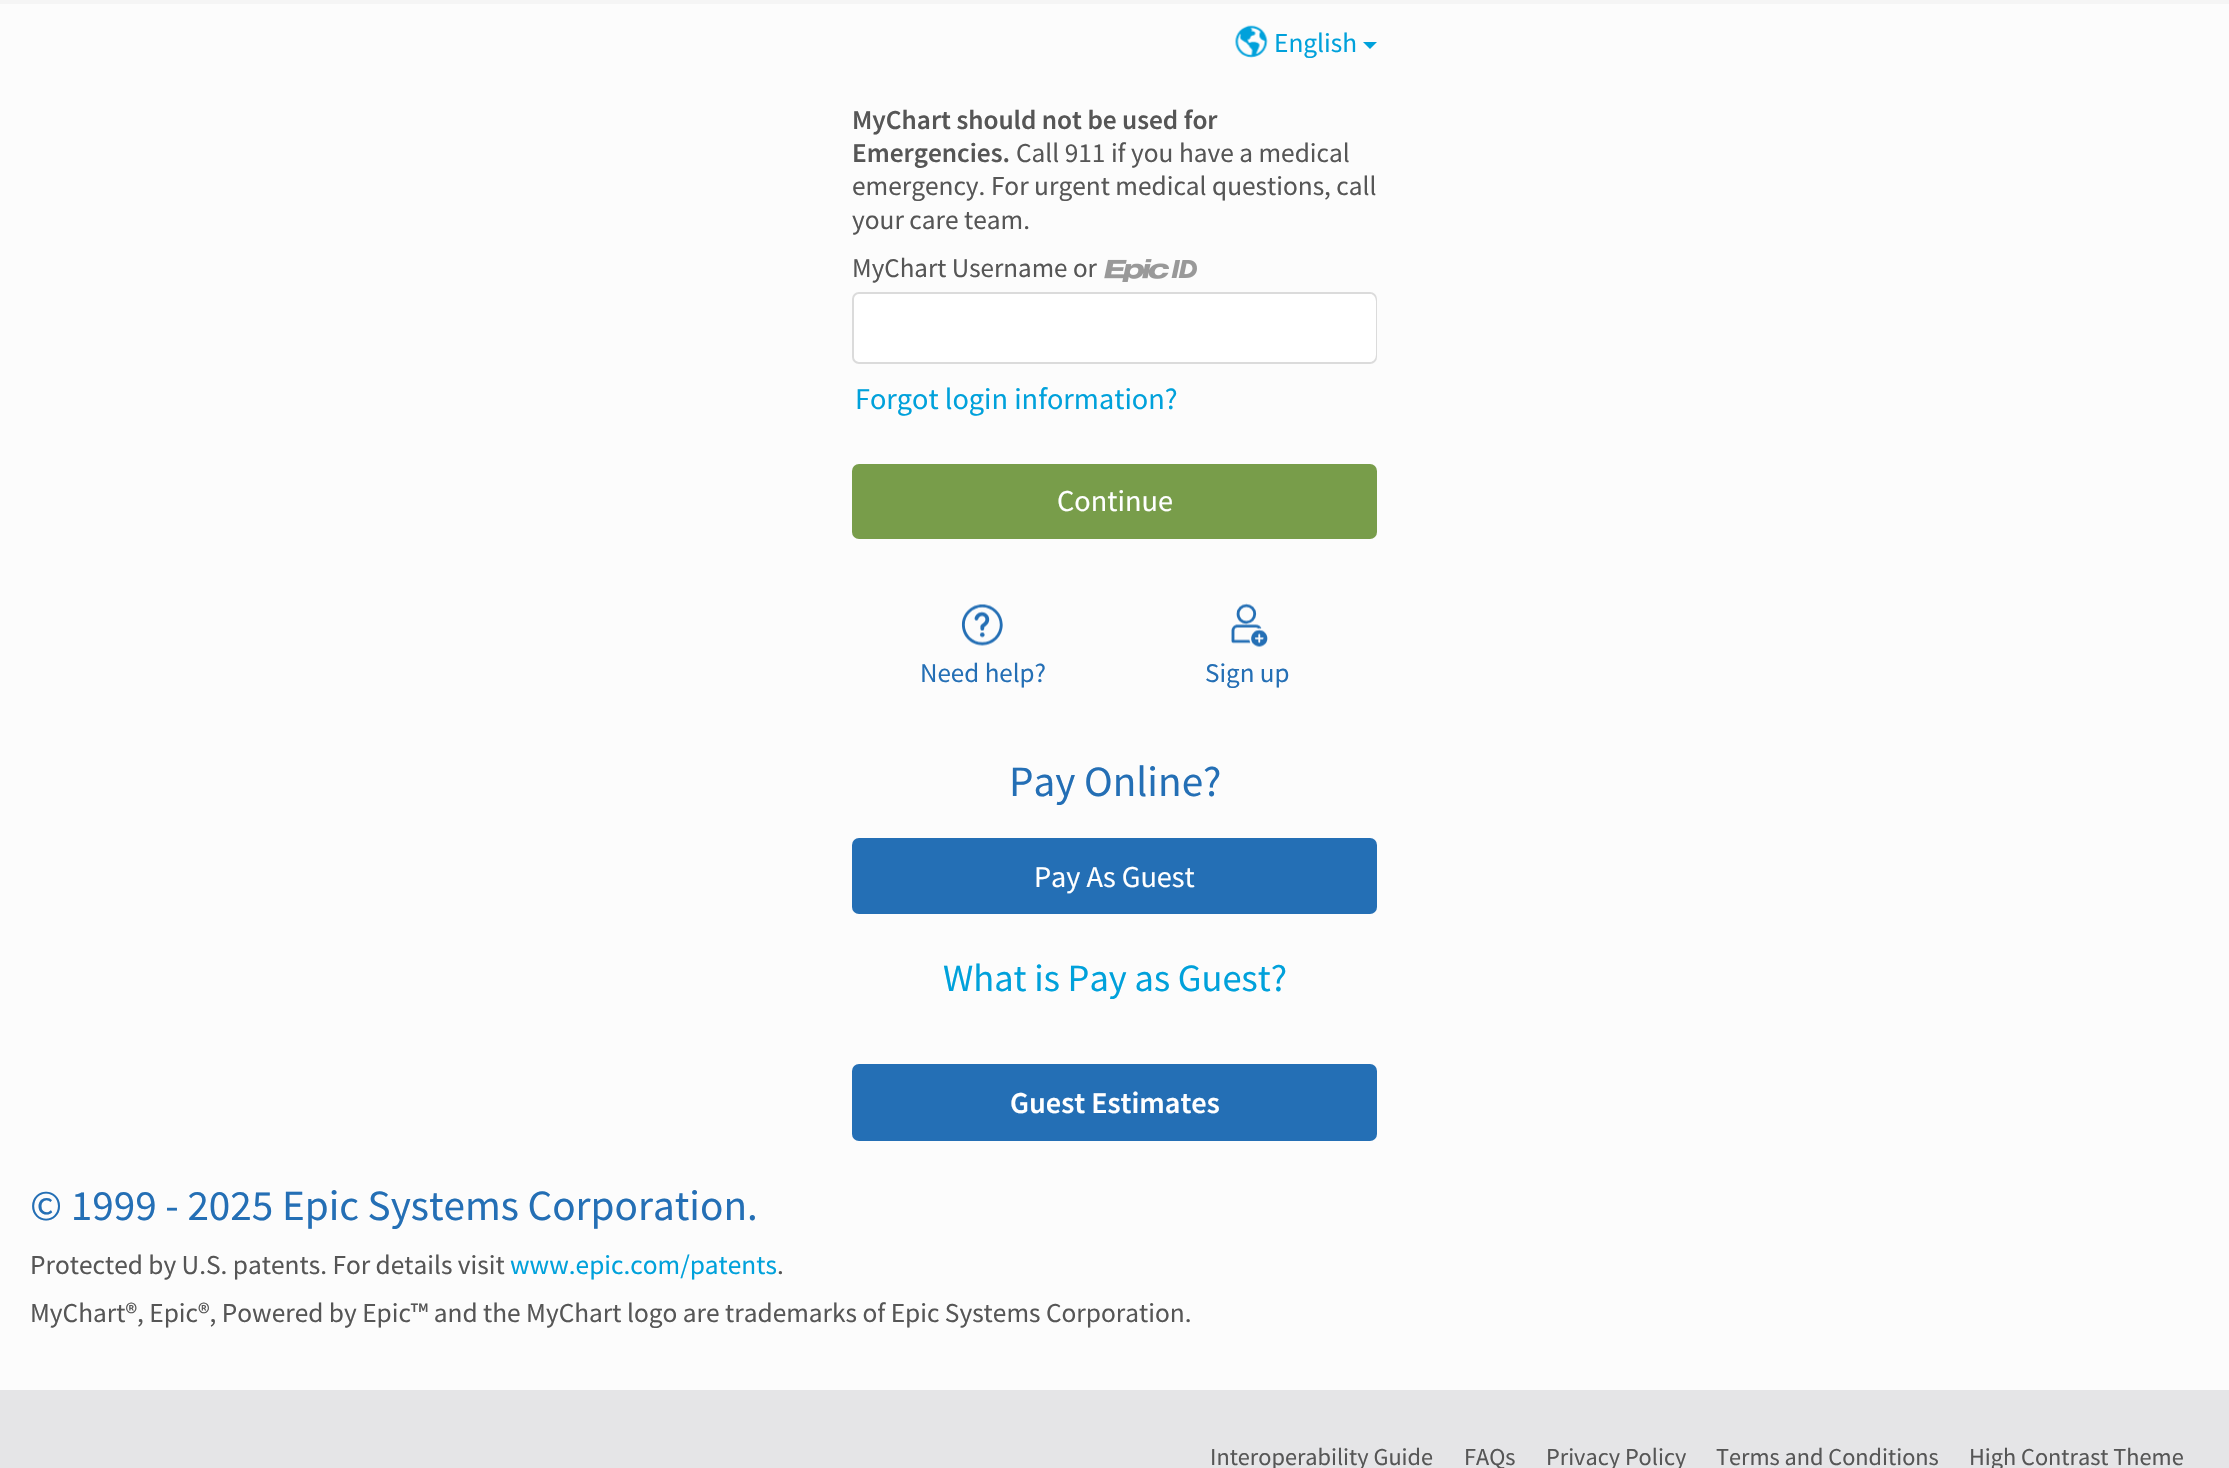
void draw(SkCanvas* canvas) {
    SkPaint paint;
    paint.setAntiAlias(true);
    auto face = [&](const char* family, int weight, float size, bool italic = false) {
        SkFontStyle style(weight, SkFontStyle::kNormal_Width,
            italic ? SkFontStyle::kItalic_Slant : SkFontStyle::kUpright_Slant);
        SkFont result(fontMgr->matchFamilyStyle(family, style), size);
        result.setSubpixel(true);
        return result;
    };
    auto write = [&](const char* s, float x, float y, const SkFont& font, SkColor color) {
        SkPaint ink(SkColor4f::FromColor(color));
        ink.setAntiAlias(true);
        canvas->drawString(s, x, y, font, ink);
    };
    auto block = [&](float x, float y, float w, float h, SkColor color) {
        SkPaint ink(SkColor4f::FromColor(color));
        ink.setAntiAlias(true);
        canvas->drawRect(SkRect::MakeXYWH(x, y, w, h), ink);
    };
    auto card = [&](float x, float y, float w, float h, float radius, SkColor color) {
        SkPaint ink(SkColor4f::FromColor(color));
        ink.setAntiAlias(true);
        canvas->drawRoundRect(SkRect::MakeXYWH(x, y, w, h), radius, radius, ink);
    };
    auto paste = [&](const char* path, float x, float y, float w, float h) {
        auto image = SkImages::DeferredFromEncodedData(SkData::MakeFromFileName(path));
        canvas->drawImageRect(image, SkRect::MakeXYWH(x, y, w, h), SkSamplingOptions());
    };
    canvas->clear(SkColorSetRGB(229, 229, 231));
    block(0, 0, 2229, 4, SkColorSetRGB(245, 245, 245));
    block(0, 4, 2229, 1386, SkColorSetRGB(252, 252, 252));
    paste("pic1.png", 1235, 25, 33, 33);
    auto kFont1 = face("Source Sans Pro", 400, 27.3f);
    write("English", 1274, 52, kFont1, SkColorSetRGB(0, 161, 219));
    paint.setColor(SkColorSetRGB(0, 161, 219));
    canvas->drawPath(SkPathBuilder().moveTo(1363, 42).lineTo(1377, 42).lineTo(1370, 49).close().detach(), paint);
    auto kFont2 = face("Source Sans Pro", 600, 27.3f);
    write("MyChart should not be used for", 852, 129, kFont2, SkColorSetRGB(86, 86, 86));
    write("Emergencies.", 852, 162, kFont2, SkColorSetRGB(86, 86, 86));
    write("Call 911 if you have a medical", 1016, 162, kFont1, SkColorSetRGB(86, 86, 86));
    write("emergency. For urgent medical questions, call", 852, 195, kFont1, SkColorSetRGB(86, 86, 86));
    write("your care team.", 852, 229, kFont1, SkColorSetRGB(86, 86, 86));
    auto kFont3 = face("Source Sans Pro", 400, 27);
    write("MyChart Username or", 852, 277, kFont3, SkColorSetRGB(86, 86, 86));
    paste("pic2.png", 1104, 259, 93, 23);
    paint.setColor(SK_ColorWHITE);
    canvas->drawRoundRect(SkRect::MakeXYWH(853, 293, 523, 70), 6, 6, paint);
    paint.setStyle(SkPaint::kStroke_Style);
    paint.setStrokeWidth(2);
    paint.setColor(SkColorSetRGB(219, 219, 219));
    canvas->drawRoundRect(SkRect::MakeXYWH(853, 293, 523, 70), 6, 6, paint);
    card(854, 294, 522, 68, 7, SK_ColorWHITE);
    auto kFont4 = face("Source Sans Pro", 400, 30.25f);
    write("Forgot login information?", 855, 409, kFont4, SkColorSetRGB(0, 161, 219));
    card(852, 464, 525, 75, 7, SkColorSetRGB(120, 157, 74));
    write("Continue", 1057, 511, kFont4, SK_ColorWHITE);
    paste("pic3.png", 961, 604, 42, 42);
    write("Need help?", 920, 682, kFont3, SkColorSetRGB(36, 111, 181));
    paste("pic4.png", 1231, 603, 37, 44);
    write("Sign up", 1205, 682, kFont3, SkColorSetRGB(36, 111, 181));
    auto kFont5 = face("Source Sans Pro", 400, 43.2f);
    write("Pay Online?", 1009, 796, kFont5, SkColorSetRGB(36, 111, 181));
    card(852, 838, 525, 76, 7, SkColorSetRGB(36, 111, 181));
    write("Pay As Guest", 1034, 887, kFont4, SK_ColorWHITE);
    auto kFont6 = face("Source Sans Pro", 400, 38.5f);
    write("What is Pay as Guest?", 943, 991, kFont6, SkColorSetRGB(0, 161, 219));
    card(852, 1064, 525, 77, 7, SkColorSetRGB(36, 111, 181));
    auto kFont7 = face("Source Sans Pro", 600, 30.25f);
    write("Guest Estimates", 1010, 1113, kFont7, SK_ColorWHITE);
    write("© 1999 - 2025 Epic Systems Corporation.", 30, 1220, kFont5, SkColorSetRGB(36, 111, 181));
    write("Protected by U.S. patents. For details visit", 30, 1274, kFont1, SkColorSetRGB(86, 86, 86));
    write("www.epic.com/patents", 510, 1274, kFont1, SkColorSetRGB(0, 161, 219));
    write(".", 777, 1274, kFont1, SkColorSetRGB(86, 86, 86));
    write("MyChart®, Epic®, Powered by Epic™ and the MyChart logo are trademarks of Epic Systems Corporation.", 30, 1322, kFont1, SkColorSetRGB(86, 86, 86));
    auto kFont8 = face("Source Sans Pro", 400, 24.25f);
    write("Interoperability Guide", 1210, 1465, kFont8, SkColorSetRGB(86, 86, 86));
    write("FAQs", 1464, 1465, kFont8, SkColorSetRGB(86, 86, 86));
    write("Privacy Policy", 1546, 1465, kFont8, SkColorSetRGB(86, 86, 86));
    write("Terms and Conditions", 1716, 1465, kFont8, SkColorSetRGB(86, 86, 86));
    write("High Contrast Theme", 1969, 1465, kFont8, SkColorSetRGB(86, 86, 86));
}
